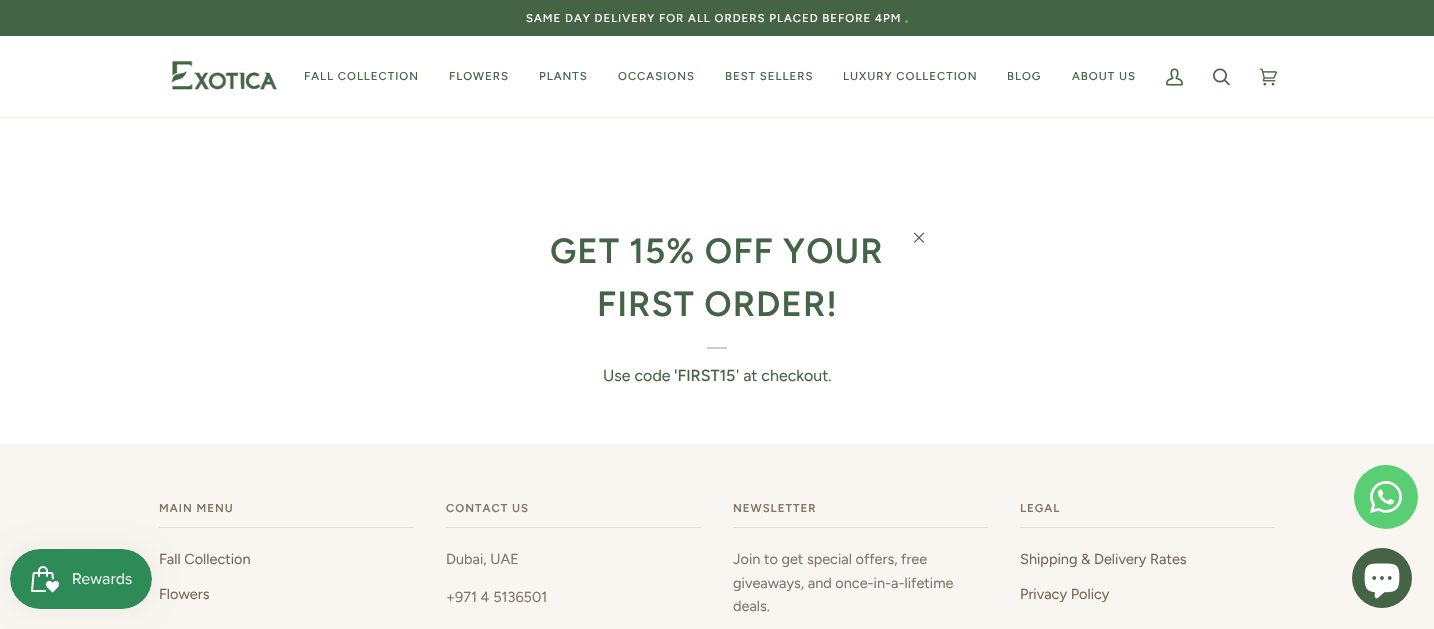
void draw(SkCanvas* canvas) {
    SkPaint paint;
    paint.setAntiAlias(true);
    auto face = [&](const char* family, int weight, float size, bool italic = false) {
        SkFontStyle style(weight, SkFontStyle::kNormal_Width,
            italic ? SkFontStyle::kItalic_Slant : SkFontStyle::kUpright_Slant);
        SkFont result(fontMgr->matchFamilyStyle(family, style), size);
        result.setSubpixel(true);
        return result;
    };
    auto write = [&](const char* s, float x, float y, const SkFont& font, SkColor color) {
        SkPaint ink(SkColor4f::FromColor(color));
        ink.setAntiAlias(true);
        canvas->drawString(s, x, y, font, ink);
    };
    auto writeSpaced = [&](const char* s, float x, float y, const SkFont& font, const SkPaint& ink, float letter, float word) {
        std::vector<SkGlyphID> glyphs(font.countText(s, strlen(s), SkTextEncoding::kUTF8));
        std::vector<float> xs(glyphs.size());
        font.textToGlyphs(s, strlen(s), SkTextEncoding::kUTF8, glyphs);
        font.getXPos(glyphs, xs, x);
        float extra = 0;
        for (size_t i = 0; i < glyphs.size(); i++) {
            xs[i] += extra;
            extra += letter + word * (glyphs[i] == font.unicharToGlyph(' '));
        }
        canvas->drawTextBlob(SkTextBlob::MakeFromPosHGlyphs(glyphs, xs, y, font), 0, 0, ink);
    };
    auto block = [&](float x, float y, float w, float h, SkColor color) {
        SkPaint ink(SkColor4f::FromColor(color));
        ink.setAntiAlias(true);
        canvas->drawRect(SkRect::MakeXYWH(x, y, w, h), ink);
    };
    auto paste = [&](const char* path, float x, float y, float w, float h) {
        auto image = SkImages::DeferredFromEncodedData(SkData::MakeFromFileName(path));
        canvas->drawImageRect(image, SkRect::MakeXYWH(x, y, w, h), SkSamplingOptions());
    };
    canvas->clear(SK_ColorWHITE);
    block(0, 0, 1434, 36, SkColorSetRGB(69, 100, 69));
    auto kFont1 = face("Figtree", 500, 11.4f);
    paint.setColor(SkColorSetRGB(255, 252, 249));
    writeSpaced("SAME DAY DELIVERY FOR ALL ORDERS PLACED BEFORE 4PM .", 526, 22, kFont1, paint, 1, 0);
    block(0, 117, 1434, 1, SkColorSetRGB(248, 240, 231));
    paste("pic1.png", 171, 60, 106, 30);
    paint.setColor(SkColorSetRGB(69, 100, 69));
    writeSpaced("FALL COLLECTION", 304, 80, kFont1, paint, 1, 0);
    writeSpaced("FLOWERS", 449, 80, kFont1, paint, 1, 0);
    writeSpaced("PLANTS", 539, 80, kFont1, paint, 1, 0);
    writeSpaced("OCCASIONS", 618, 80, kFont1, paint, 1, 0);
    writeSpaced("BEST SELLERS", 725, 80, kFont1, paint, 1, 0);
    writeSpaced("LUXURY COLLECTION", 843, 80, kFont1, paint, 1, 0);
    writeSpaced("BLOG", 1007, 80, kFont1, paint, 1, 0);
    writeSpaced("ABOUT US", 1072, 80, kFont1, paint, 1, 0);
    paste("pic2.png", 1166, 68, 17, 18);
    paste("pic3.png", 1213, 68, 17, 18);
    paste("pic4.png", 1260, 68, 17, 18);
    auto kFont2 = face("Figtree", 600, 35);
    writeSpaced("GET 15% OFF YOUR", 550, 263, kFont2, paint, 1, 0);
    writeSpaced("FIRST ORDER!", 597, 316, kFont2, paint, 1, 0);
    paste("pic5.png", 913, 232, 12, 11);
    block(707, 347, 20, 2, SkColorSetRGB(199, 209, 199));
    auto kFont3 = face("Figtree", 400, 16);
    write("Use code", 603, 381, kFont3, SkColorSetRGB(69, 100, 69));
    auto kFont4 = face("Figtree", 500, 16);
    write("'FIRST15", 674, 381, kFont4, SkColorSetRGB(69, 100, 69));
    write("' at checkout.", 736, 381, kFont3, SkColorSetRGB(69, 100, 69));
    block(0, 444, 1434, 185, SkColorSetRGB(249, 246, 242));
    block(159, 527, 255, 1, SkColorSetRGB(229, 224, 219));
    paint.setColor(SkColorSetARGB(13, 0, 0, 0));
    paint.setMaskFilter(SkMaskFilter::MakeBlur(kNormal_SkBlurStyle, 12.5f));
    canvas->drawRoundRect(SkRect::MakeXYWH(10, 549, 142, 60), 30, 30, paint);
    paint.setMaskFilter(nullptr);
    paste("pic6.png", 10, 549, 142, 60);
    auto kFont5 = face("Figtree", 600, 11.4f);
    paint.setColor(SkColorSetRGB(131, 115, 102));
    writeSpaced("MAIN MENU", 159, 512, kFont5, paint, 1, 0);
    auto kFont6 = face("Figtree", 400, 14.5f);
    write("Fall Collection", 159, 564, kFont6, SkColorSetRGB(118, 100, 86));
    write("Flowers", 159, 599, kFont6, SkColorSetRGB(118, 100, 86));
    block(446, 527, 255, 1, SkColorSetRGB(229, 224, 219));
    writeSpaced("CONTACT US", 446, 512, kFont5, paint, 1, 0);
    write("Dubai, UAE", 446, 564, kFont6, SkColorSetRGB(131, 115, 102));
    write("+971 4 5136501", 446, 602, kFont6, SkColorSetRGB(131, 115, 102));
    block(733, 527, 255, 1, SkColorSetRGB(229, 224, 219));
    writeSpaced("NEWSLETTER", 733, 512, kFont5, paint, 1, 0);
    write("Join to get special offers, free", 733, 564, kFont6, SkColorSetRGB(131, 115, 102));
    write("giveaways, and once-in-a-lifetime", 733, 588, kFont6, SkColorSetRGB(131, 115, 102));
    write("deals.", 733, 611, kFont6, SkColorSetRGB(131, 115, 102));
    block(1020, 527, 255, 1, SkColorSetRGB(229, 224, 219));
    writeSpaced("LEGAL", 1020, 512, kFont5, paint, 1, 0);
    write("Shipping & Delivery Rates", 1020, 564, kFont6, SkColorSetRGB(118, 100, 86));
    write("Privacy Policy", 1020, 599, kFont6, SkColorSetRGB(118, 100, 86));
    paint.setColor(SkColorSetRGB(89, 206, 114));
    canvas->drawCircle(1386, 497, 32, paint);
    paste("pic7.png", 1370, 481, 32, 32);
    paint.setColor(SkColorSetRGB(69, 100, 69));
    canvas->drawCircle(1382, 578, 30, paint);
    paste("pic8.png", 1364, 563, 36, 36);
}
